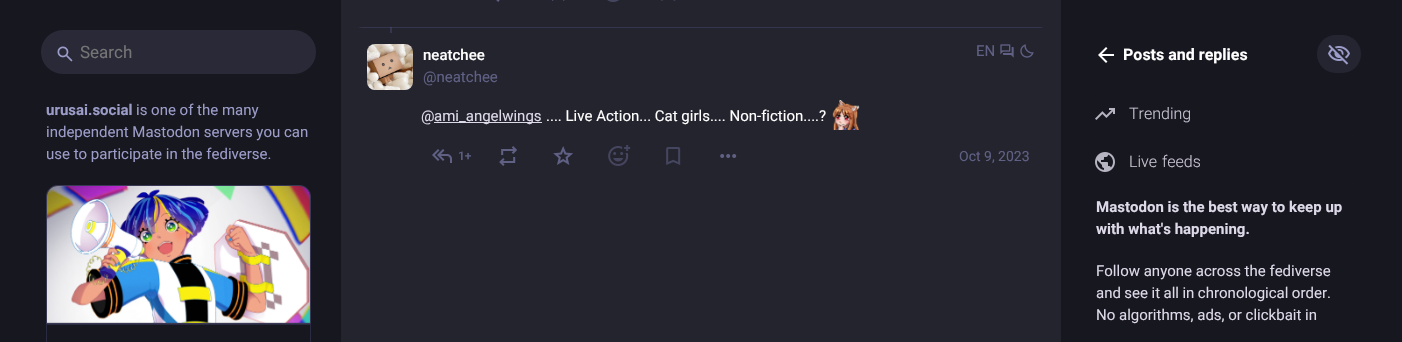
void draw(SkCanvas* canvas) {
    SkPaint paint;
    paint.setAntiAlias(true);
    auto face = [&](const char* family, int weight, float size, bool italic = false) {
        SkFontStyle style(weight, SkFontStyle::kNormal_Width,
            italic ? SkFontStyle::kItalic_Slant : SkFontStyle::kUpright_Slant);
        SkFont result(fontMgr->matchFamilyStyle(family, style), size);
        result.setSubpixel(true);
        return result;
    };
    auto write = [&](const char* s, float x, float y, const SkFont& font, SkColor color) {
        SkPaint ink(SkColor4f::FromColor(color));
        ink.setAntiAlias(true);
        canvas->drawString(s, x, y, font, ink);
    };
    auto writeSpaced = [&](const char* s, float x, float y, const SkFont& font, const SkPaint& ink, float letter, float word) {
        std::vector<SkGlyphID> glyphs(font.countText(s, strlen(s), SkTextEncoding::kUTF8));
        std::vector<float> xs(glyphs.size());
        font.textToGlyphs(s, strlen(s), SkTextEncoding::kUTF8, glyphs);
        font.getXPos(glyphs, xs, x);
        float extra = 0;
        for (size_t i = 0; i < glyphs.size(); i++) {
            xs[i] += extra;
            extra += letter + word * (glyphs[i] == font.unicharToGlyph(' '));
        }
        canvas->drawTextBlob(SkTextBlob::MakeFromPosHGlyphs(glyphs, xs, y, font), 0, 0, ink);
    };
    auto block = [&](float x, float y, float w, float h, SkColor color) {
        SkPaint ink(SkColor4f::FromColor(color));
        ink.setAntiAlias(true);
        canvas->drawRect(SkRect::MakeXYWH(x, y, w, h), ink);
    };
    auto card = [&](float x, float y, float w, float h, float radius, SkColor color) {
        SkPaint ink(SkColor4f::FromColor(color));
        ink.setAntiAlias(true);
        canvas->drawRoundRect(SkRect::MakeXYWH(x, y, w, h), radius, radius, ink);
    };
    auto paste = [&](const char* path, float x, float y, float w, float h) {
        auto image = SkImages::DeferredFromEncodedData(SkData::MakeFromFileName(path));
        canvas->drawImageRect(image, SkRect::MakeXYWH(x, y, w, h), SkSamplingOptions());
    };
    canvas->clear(SkColorSetRGB(23, 23, 31));
    card(41, 30, 275, 44, 22, SkColorSetRGB(41, 41, 56));
    paste("pic1.png", 57, 46, 16, 16);
    auto kFont1 = face("Roboto", 400, 17);
    write("Search", 80, 58, kFont1, SkColorSetRGB(117, 117, 117));
    auto kFont2 = face("Roboto", 700, 15);
    write("urusai.social", 46, 115, kFont2, SkColorSetRGB(156, 156, 201));
    auto kFont3 = face("Roboto", 400, 15);
    write("is one of the many", 136, 115, kFont3, SkColorSetRGB(156, 156, 201));
    write("independent Mastodon servers you can", 46, 137, kFont3, SkColorSetRGB(156, 156, 201));
    write("use to participate in the fediverse.", 46, 159, kFont3, SkColorSetRGB(156, 156, 201));
    paint.setColor(SkColorSetRGB(41, 41, 56));
    canvas->drawPath(SkPathBuilder().moveTo(58, 185).lineTo(299, 185).cubicTo(305.5f, 185, 311, 190.5f, 311, 197).lineTo(311, 324).lineTo(46, 324).lineTo(46, 197).cubicTo(46, 190.5f, 51.5f, 185, 58, 185).close().detach(), paint);
    paint.setStyle(SkPaint::kStroke_Style);
    paint.setStrokeWidth(1);
    paint.setColor(SkColorSetARGB(51, 120, 120, 200));
    canvas->drawPath(SkPathBuilder().moveTo(58, 185.5f).lineTo(299, 185.5f).cubicTo(305.5f, 185.5f, 310.5f, 190.5f, 310.5f, 197).lineTo(310.5f, 323.5f).lineTo(46.5f, 323.5f).lineTo(46.5f, 197).cubicTo(46.5f, 190.5f, 51.5f, 185.5f, 58, 185.5f).close().detach(), paint);
    paste("pic2.png", 47, 186, 263, 137);
    paint.setColor(SkColorSetRGB(42, 42, 65));
    canvas->drawRect(SkRect::MakeXYWH(46.5f, 324.5f, 264, 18), paint);
    block(341, 0, 720, 342, SkColorSetRGB(36, 36, 47));
    block(390, 27, 2, 6, SkColorSetRGB(53, 53, 78));
    paste("pic3.png", 496, 0, 4, 2);
    paste("pic4.png", 552, 0, 13, 1);
    paste("pic5.png", 607, 0, 12, 2);
    paste("pic6.png", 661, 0, 15, 1);
    canvas->save();
    canvas->clipPath(SkPathBuilder().moveTo(363, 27).lineTo(1039, 27).cubicTo(1045.5f, 27, 1051, 32.5f, 1051, 39).lineTo(1051, 178).cubicTo(1051, 184.5f, 1045.5f, 190, 1039, 190).lineTo(363, 190).cubicTo(356.5f, 190, 351, 184.5f, 351, 178).lineTo(351, 39).cubicTo(351, 32.5f, 356.5f, 27, 363, 27).close().detach(), true);
    block(351, 27, 700, 1, SkColorSetRGB(53, 53, 78));
    canvas->restore();
    block(390, 27, 2, 1, SkColorSetRGB(66, 66, 102));
    paste("pic7.png", 367, 44, 46, 46);
    auto kFont4 = face("Roboto", 500, 15);
    write("neatchee", 423, 60, kFont4, SK_ColorWHITE);
    write("@neatchee", 423, 82, kFont3, SkColorSetRGB(96, 96, 133));
    write("EN", 976, 56, kFont3, SkColorSetRGB(96, 96, 133));
    paste("pic8.png", 1000, 44, 14, 14);
    paste("pic9.png", 1020, 44, 14, 14);
    write("@", 421, 121, kFont3, SkColorSetRGB(221, 217, 232));
    block(434, 122, 108, 1, SkColorSetRGB(221, 217, 232));
    write("ami_angelwings", 434, 121, kFont3, SkColorSetRGB(221, 217, 232));
    write(".... Live Action... Cat girls.... Non-fiction....?", 546, 121, kFont3, SK_ColorWHITE);
    paste("pic10.png", 832, 100, 28, 30);
    paste("pic11.png", 432, 149, 20, 14);
    auto kFont5 = face("Roboto", 500, 12);
    write("1+", 458, 160, kFont5, SkColorSetRGB(96, 96, 133));
    paste("pic12.png", 499, 146, 18, 20);
    paste("pic13.png", 553, 146, 20, 19);
    paste("pic14.png", 608, 145, 23, 21);
    paste("pic15.png", 666, 147, 15, 18);
    paste("pic16.png", 720, 154, 17, 4);
    auto kFont6 = face("Roboto", 400, 14);
    write("Oct 9, 2023", 959, 161, kFont6, SkColorSetRGB(96, 96, 133));
    paste("pic17.png", 1098, 47, 16, 16);
    auto kFont7 = face("Roboto", 700, 16);
    write("Posts and replies", 1123, 60, kFont7, SK_ColorWHITE);
    card(1317, 35, 44, 38, 19, SkColorSetRGB(37, 37, 50));
    paste("pic18.png", 1328, 44, 22, 21);
    paste("pic19.png", 1095, 108, 20, 12);
    card(1081, 90, 285, 48, 24, SkColorSetARGB(26, 23, 23, 31));
    auto kFont8 = face("Roboto", 300, 16);
    write("Trending", 1129, 119, kFont8, SkColorSetRGB(201, 198, 212));
    paste("pic20.png", 1095, 152, 20, 20);
    card(1081, 138, 285, 48, 24, SkColorSetARGB(26, 23, 23, 31));
    paint.setStyle(SkPaint::kFill_Style);
    paint.setColor(SkColorSetRGB(201, 198, 212));
    writeSpaced("Live feeds", 1129, 167, kFont8, paint, 0, 1);
    write("Mastodon is the best way to keep up", 1096, 212, kFont2, SkColorSetRGB(221, 217, 232));
    write("with what's happening.", 1096, 234, kFont2, SkColorSetRGB(221, 217, 232));
    write("Follow anyone across the fediverse", 1096, 276, kFont3, SkColorSetRGB(221, 217, 232));
    paint.setColor(SkColorSetRGB(221, 217, 232));
    writeSpaced("and see it all in chronological order.", 1096, 298, kFont3, paint, 0, -0.25f);
    write("No algorithms, ads, or clickbait in", 1096, 320, kFont3, SkColorSetRGB(221, 217, 232));
}
